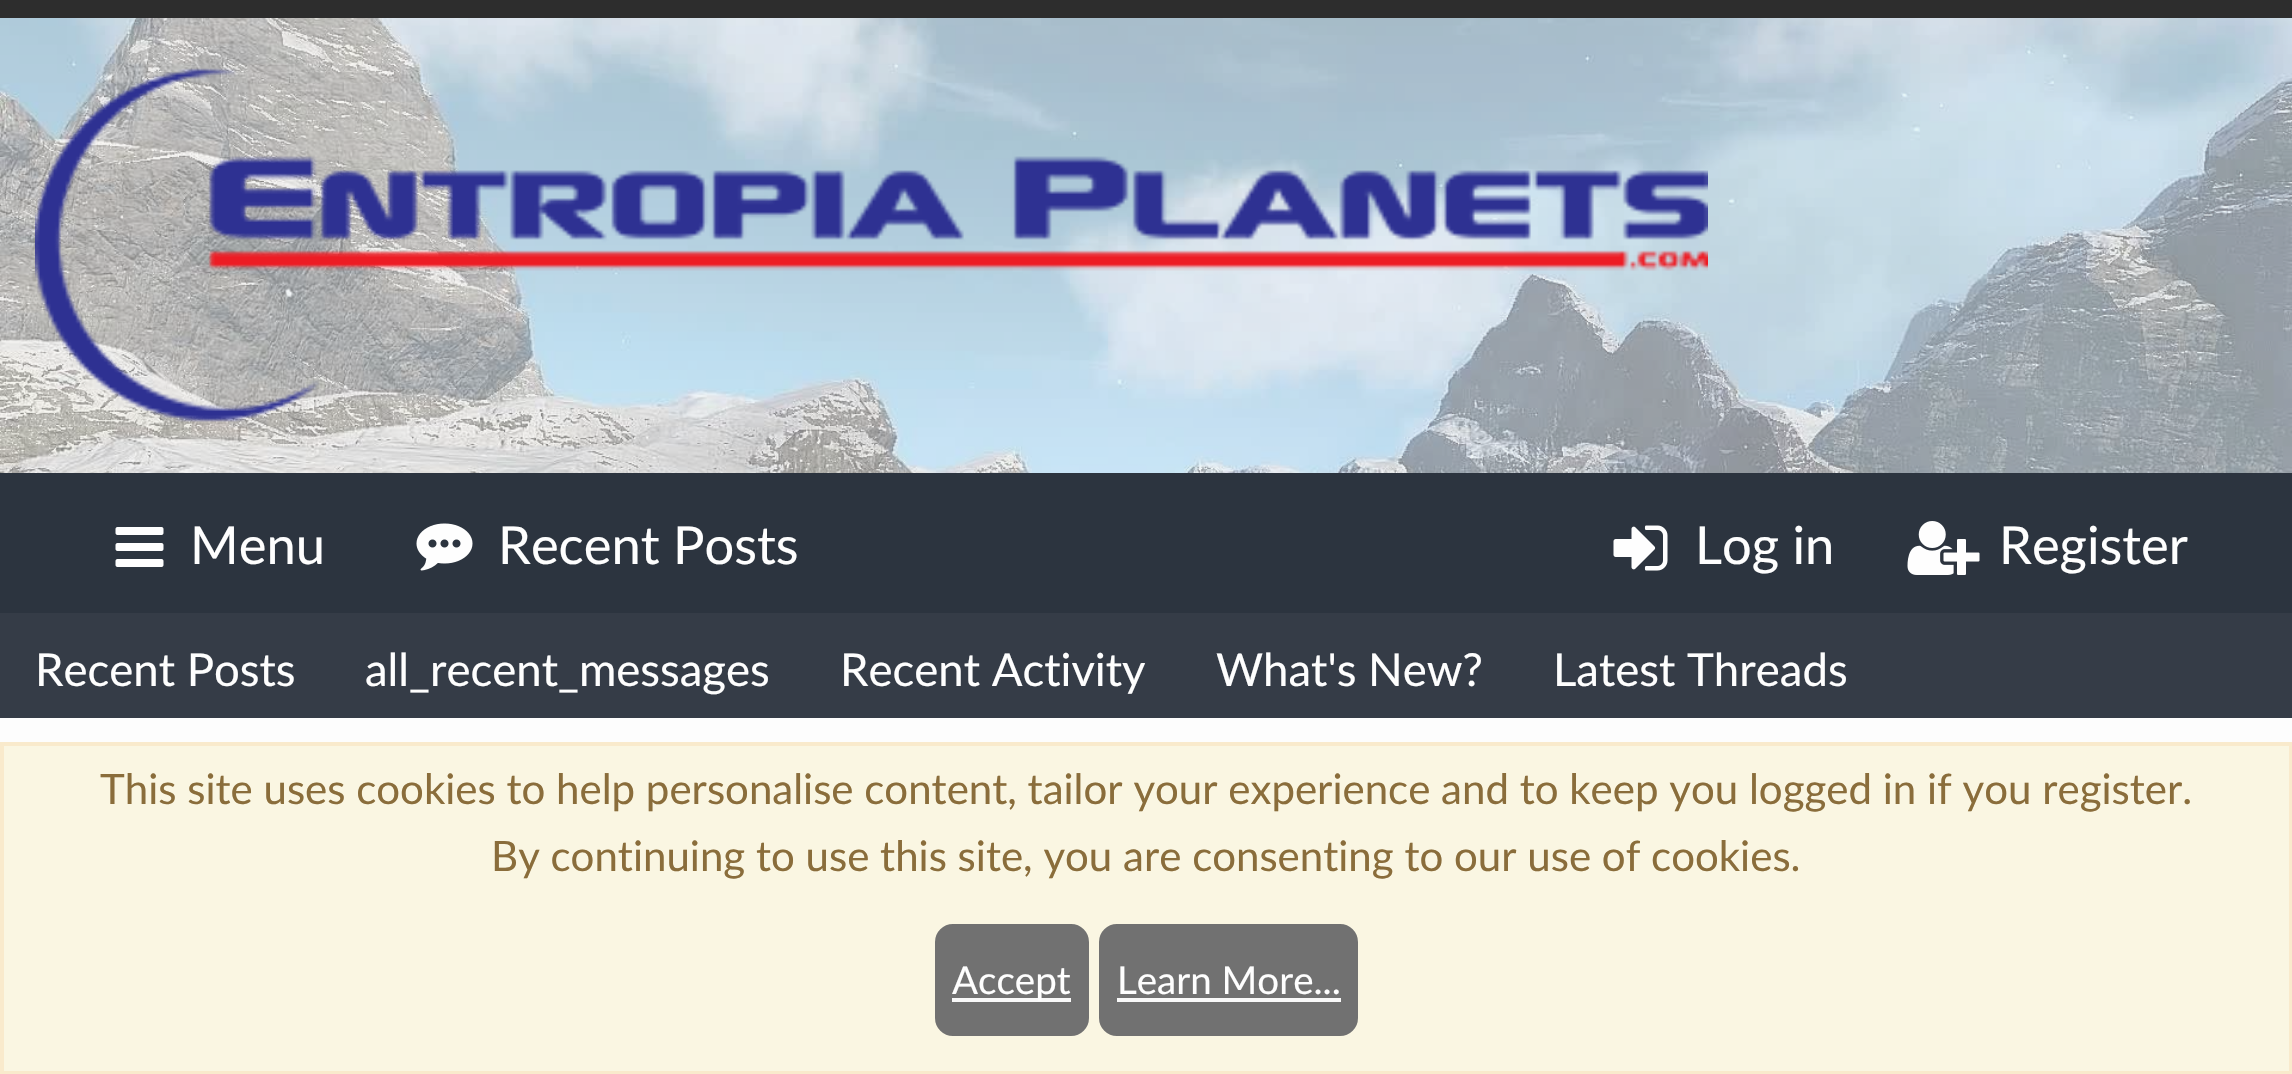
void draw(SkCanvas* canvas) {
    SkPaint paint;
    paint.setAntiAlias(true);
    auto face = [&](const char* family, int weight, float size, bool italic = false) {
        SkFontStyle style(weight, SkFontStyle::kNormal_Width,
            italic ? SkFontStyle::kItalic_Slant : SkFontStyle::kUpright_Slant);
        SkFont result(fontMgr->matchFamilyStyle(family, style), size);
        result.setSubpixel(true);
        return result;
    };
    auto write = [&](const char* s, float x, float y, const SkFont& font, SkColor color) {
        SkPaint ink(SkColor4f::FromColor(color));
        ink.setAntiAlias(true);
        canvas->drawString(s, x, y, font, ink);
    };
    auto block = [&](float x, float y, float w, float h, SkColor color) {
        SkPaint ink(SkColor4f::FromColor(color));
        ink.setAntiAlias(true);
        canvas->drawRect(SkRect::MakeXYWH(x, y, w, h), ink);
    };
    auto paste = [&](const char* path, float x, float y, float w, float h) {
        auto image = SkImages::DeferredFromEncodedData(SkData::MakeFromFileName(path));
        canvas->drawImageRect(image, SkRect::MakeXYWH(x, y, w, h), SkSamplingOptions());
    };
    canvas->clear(SkColorSetRGB(240, 240, 240));
    paste("pic1.png", 0, 18, 2292, 455);
    block(0, 0, 2292, 18, SkColorSetRGB(45, 45, 45));
    paste("pic2.png", 35, 68, 1673, 354);
    block(0, 473, 2292, 140, SkColorSetRGB(44, 52, 63));
    paste("pic3.png", 115, 527, 49, 40);
    auto kFont1 = face("Lato", 400, 52.5f);
    write("Menu", 190, 564, kFont1, SkColorSetRGB(254, 254, 254));
    paste("pic4.png", 416, 523, 57, 48);
    write("Recent Posts", 498, 564, kFont1, SkColorSetRGB(254, 254, 254));
    paste("pic5.png", 1613, 525, 55, 46);
    write("Log in", 1695, 564, kFont1, SkColorSetRGB(254, 254, 254));
    paste("pic6.png", 1907, 521, 73, 54);
    write("Register", 1999, 564, kFont1, SkColorSetRGB(254, 254, 254));
    block(0, 613, 2292, 105, SkColorSetRGB(53, 60, 71));
    auto kFont2 = face("Lato", 400, 45.5f);
    write("Recent Posts", 35, 686, kFont2, SkColorSetRGB(254, 254, 254));
    write("all_recent_messages", 365, 686, kFont2, SkColorSetRGB(254, 254, 254));
    write("Recent Activity", 840, 686, kFont2, SkColorSetRGB(254, 254, 254));
    write("What's New?", 1216, 686, kFont2, SkColorSetRGB(254, 254, 254));
    write("Latest Threads", 1553, 686, kFont2, SkColorSetRGB(254, 254, 254));
    block(0, 718, 2292, 24, SkColorSetRGB(253, 253, 253));
    paint.setColor(SkColorSetRGB(250, 246, 226));
    canvas->drawRect(SkRect::MakeXYWH(2, 744, 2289, 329), paint);
    paint.setStyle(SkPaint::kStroke_Style);
    paint.setStrokeWidth(4);
    paint.setColor(SkColorSetRGB(249, 234, 204));
    canvas->drawRect(SkRect::MakeXYWH(2, 744, 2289, 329), paint);
    auto kFont3 = face("Lato", 400, 42);
    write("This site uses cookies to help personalise content, tailor your experience and to keep you logged in if you register.", 100, 804, kFont3, SkColorSetRGB(138, 109, 59));
    write("By continuing to use this site, you are consenting to our use of cookies.", 491, 871, kFont3, SkColorSetRGB(138, 109, 59));
    paint.setStyle(SkPaint::kFill_Style);
    paint.setColor(SkColorSetRGB(113, 113, 113));
    canvas->drawRoundRect(SkRect::MakeXYWH(937, 926, 150, 108), 16, 16, paint);
    paint.setStyle(SkPaint::kStroke_Style);
    canvas->drawRoundRect(SkRect::MakeXYWH(937, 926, 150, 108), 16, 16, paint);
    block(952, 998, 119, 4, SkColorSetRGB(249, 249, 249));
    auto kFont4 = face("Lato", 400, 38.5f);
    write("Accept", 952, 994, kFont4, SkColorSetRGB(254, 254, 254));
    paint.setStyle(SkPaint::kFill_Style);
    canvas->drawRoundRect(SkRect::MakeXYWH(1101, 926, 255, 108), 16, 16, paint);
    paint.setStyle(SkPaint::kStroke_Style);
    canvas->drawRoundRect(SkRect::MakeXYWH(1101, 926, 255, 108), 16, 16, paint);
    write("Learn More...", 1117, 994, kFont4, SkColorSetRGB(254, 254, 254));
    block(1117, 998, 224, 4, SkColorSetRGB(249, 249, 249));
}
